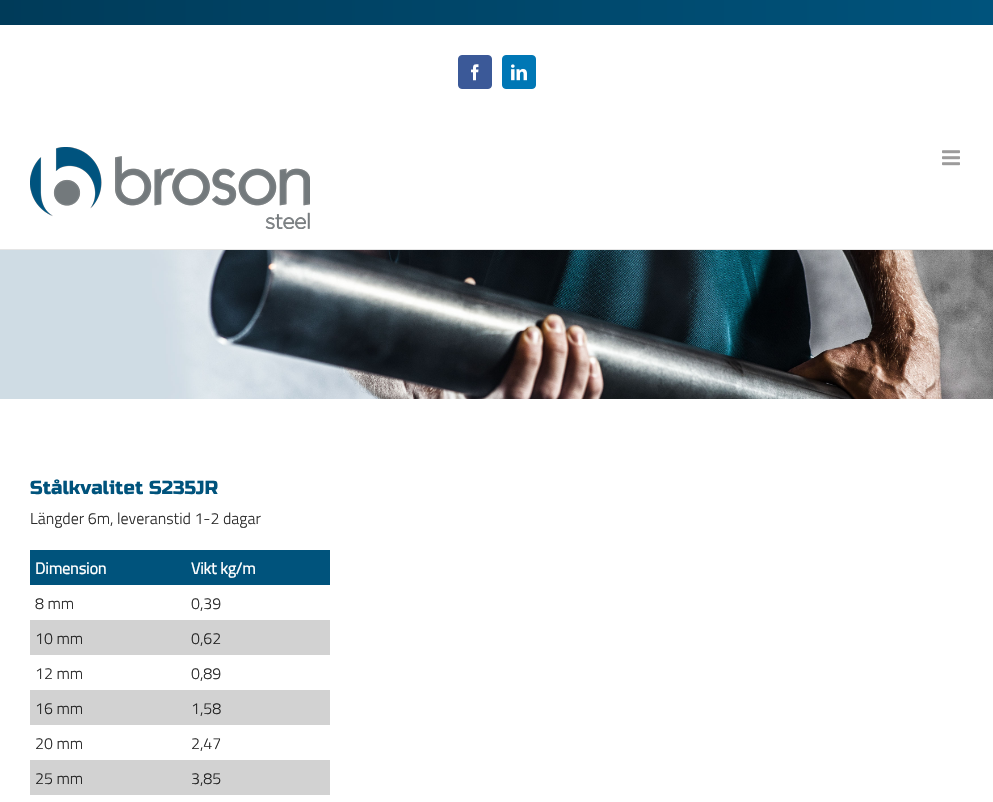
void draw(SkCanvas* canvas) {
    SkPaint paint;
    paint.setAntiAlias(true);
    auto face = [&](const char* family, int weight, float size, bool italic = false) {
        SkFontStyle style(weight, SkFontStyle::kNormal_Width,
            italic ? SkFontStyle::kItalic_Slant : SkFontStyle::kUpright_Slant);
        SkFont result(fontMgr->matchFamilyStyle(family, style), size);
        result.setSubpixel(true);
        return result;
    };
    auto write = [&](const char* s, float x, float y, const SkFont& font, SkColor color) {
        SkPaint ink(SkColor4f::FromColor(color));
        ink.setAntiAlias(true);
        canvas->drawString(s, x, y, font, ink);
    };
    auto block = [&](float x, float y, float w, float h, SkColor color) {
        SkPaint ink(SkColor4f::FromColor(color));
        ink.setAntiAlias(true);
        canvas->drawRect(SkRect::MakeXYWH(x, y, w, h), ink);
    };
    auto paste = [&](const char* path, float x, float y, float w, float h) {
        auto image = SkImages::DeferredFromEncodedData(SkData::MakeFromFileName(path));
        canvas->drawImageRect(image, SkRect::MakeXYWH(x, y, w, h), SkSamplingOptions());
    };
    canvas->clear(SK_ColorWHITE);
    {
        const SkColor colors[] = {SkColorSetRGB(0, 83, 124), SkColorSetRGB(0, 59, 89)};
        const float stops[] = {0, 1};
        const SkPoint ends[] = {{993, 138}, {0, 137}};
        paint.setShader(SkGradientShader::MakeLinear(ends, colors, stops, 2, SkTileMode::kClamp));
        paint.setAlpha(255);
    }
    canvas->drawRect(SkRect::MakeXYWH(0, 0, 993, 25), paint);
    paint.setShader(nullptr);
    paint.setColor(SkColorSetRGB(59, 89, 152));
    canvas->drawRoundRect(SkRect::MakeXYWH(458.5f, 55.5f, 33, 33), 3.5f, 3.5f, paint);
    paint.setStyle(SkPaint::kStroke_Style);
    paint.setStrokeWidth(1);
    canvas->drawRoundRect(SkRect::MakeXYWH(458.5f, 55.5f, 33, 33), 3.5f, 3.5f, paint);
    paste("pic1.png", 471, 64, 8, 17);
    paint.setStyle(SkPaint::kFill_Style);
    paint.setColor(SkColorSetRGB(0, 119, 181));
    canvas->drawRoundRect(SkRect::MakeXYWH(502.5f, 55.5f, 33, 33), 3.5f, 3.5f, paint);
    paint.setStyle(SkPaint::kStroke_Style);
    canvas->drawRoundRect(SkRect::MakeXYWH(502.5f, 55.5f, 33, 33), 3.5f, 3.5f, paint);
    paste("pic2.png", 511, 64, 16, 17);
    block(0, 249, 993, 1, SkColorSetRGB(229, 229, 229));
    paste("pic3.png", 30, 147, 280, 82);
    paste("pic4.png", 942, 150, 18, 16);
    paste("pic5.png", 0, 250, 993, 149);
    auto kFont1 = face("Russo One", 400, 19);
    write("Stålkvalitet S235JR", 30, 494, kFont1, SkColorSetRGB(0, 83, 124));
    auto kFont2 = face("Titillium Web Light", 300, 16);
    write("Längder 6m, leveranstid 1-2 dagar", 30, 524, kFont2, SkColorSetRGB(43, 43, 43));
    block(30, 550, 300, 35, SkColorSetRGB(0, 83, 124));
    auto kFont3 = face("Titillium Web Light", 700, 16);
    write("Dimension", 35, 574, kFont3, SK_ColorWHITE);
    write("Vikt kg/m", 191, 574, kFont3, SK_ColorWHITE);
    write("8 mm", 35, 609, kFont2, SkColorSetRGB(43, 43, 43));
    write("0,39", 191, 609, kFont2, SkColorSetRGB(43, 43, 43));
    block(30, 620, 300, 35, SkColorSetRGB(210, 210, 210));
    write("10 mm", 35, 644, kFont2, SkColorSetRGB(36, 36, 36));
    write("0,62", 191, 644, kFont2, SkColorSetRGB(36, 36, 36));
    write("12 mm", 35, 679, kFont2, SkColorSetRGB(43, 43, 43));
    write("0,89", 191, 679, kFont2, SkColorSetRGB(43, 43, 43));
    block(30, 690, 300, 35, SkColorSetRGB(210, 210, 210));
    write("16 mm", 35, 714, kFont2, SkColorSetRGB(36, 36, 36));
    write("1,58", 191, 714, kFont2, SkColorSetRGB(36, 36, 36));
    write("20 mm", 35, 749, kFont2, SkColorSetRGB(43, 43, 43));
    write("2,47", 191, 749, kFont2, SkColorSetRGB(43, 43, 43));
    block(30, 760, 300, 35, SkColorSetRGB(210, 210, 210));
    write("25 mm", 35, 784, kFont2, SkColorSetRGB(36, 36, 36));
    write("3,85", 191, 784, kFont2, SkColorSetRGB(36, 36, 36));
}
